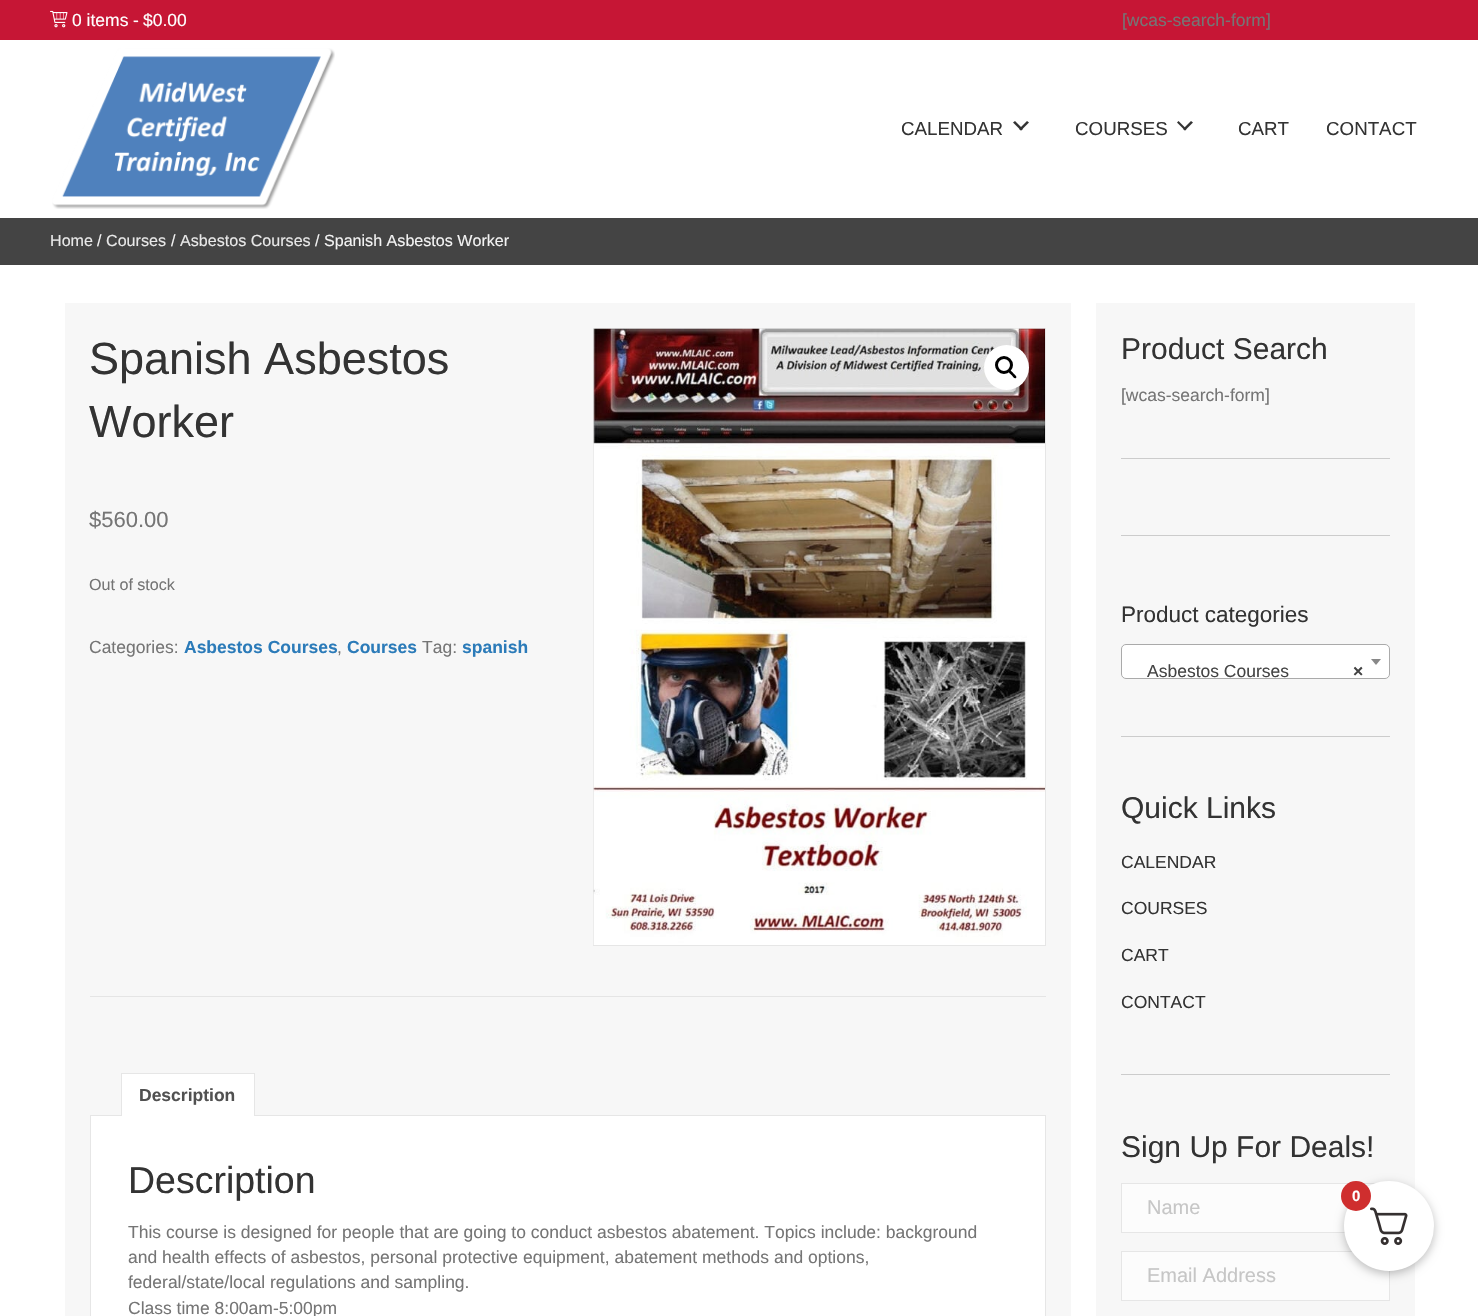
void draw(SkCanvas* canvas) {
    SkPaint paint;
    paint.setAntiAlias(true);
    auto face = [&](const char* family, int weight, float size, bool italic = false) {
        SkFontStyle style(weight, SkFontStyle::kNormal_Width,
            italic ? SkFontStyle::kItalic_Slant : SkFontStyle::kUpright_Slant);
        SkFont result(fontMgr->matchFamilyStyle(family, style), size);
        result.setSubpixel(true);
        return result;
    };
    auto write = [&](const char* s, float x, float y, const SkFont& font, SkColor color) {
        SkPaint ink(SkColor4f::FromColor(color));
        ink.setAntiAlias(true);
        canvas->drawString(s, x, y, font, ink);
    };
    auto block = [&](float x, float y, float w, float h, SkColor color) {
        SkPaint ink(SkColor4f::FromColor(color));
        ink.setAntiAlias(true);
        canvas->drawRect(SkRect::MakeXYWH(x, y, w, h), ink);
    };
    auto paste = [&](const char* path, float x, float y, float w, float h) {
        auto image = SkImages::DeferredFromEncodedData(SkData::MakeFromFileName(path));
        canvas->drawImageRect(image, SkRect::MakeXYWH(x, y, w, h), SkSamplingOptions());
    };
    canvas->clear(SK_ColorWHITE);
    block(0, 0, 1478, 40, SkColorSetRGB(198, 22, 53));
    paste("pic1.png", 50, 10, 18, 18);
    auto kFont1 = face("Liberation Sans", 400, 17.5f);
    write("0 items", 72, 26, kFont1, SK_ColorWHITE);
    write("-", 133, 26, kFont1, SK_ColorWHITE);
    write("$0.00", 143, 26, kFont1, SK_ColorWHITE);
    write("[wcas-search-form]", 1122, 26, kFont1, SkColorSetRGB(117, 117, 117));
    paste("pic2.png", 52, 48, 283, 161);
    auto kFont2 = face("Liberation Sans", 400, 18.75f);
    write("CALENDAR", 901, 135, kFont2, SkColorSetRGB(51, 51, 51));
    paint.setColor(SkColorSetRGB(51, 51, 51));
    canvas->drawPath(SkPathBuilder().moveTo(1027, 121).lineTo(1029, 122.5f).lineTo(1021, 130.5f).lineTo(1019, 129).close().detach(), paint);
    canvas->drawPath(SkPathBuilder().moveTo(1015, 121).lineTo(1023, 129).lineTo(1021, 130.5f).lineTo(1013, 122.5f).close().detach(), paint);
    write("COURSES", 1075, 135, kFont2, SkColorSetRGB(51, 51, 51));
    canvas->drawPath(SkPathBuilder().moveTo(1191, 121).lineTo(1193, 122.5f).lineTo(1185, 130.5f).lineTo(1183, 129).close().detach(), paint);
    canvas->drawPath(SkPathBuilder().moveTo(1178.5f, 121).lineTo(1186.5f, 129).lineTo(1185, 130.5f).lineTo(1177, 122.5f).close().detach(), paint);
    write("CART", 1238, 135, kFont2, SkColorSetRGB(51, 51, 51));
    write("CONTACT", 1326, 135, kFont2, SkColorSetRGB(51, 51, 51));
    block(0, 218, 1478, 47, SkColorSetRGB(68, 68, 68));
    auto kFont3 = face("Liberation Sans", 400, 16.1f);
    write("Home", 50, 246, kFont3, SkColorSetRGB(232, 232, 232));
    write("/", 97, 246, kFont3, SkColorSetRGB(243, 243, 243));
    write("Courses", 106, 246, kFont3, SkColorSetRGB(232, 232, 232));
    write("/", 171, 246, kFont3, SkColorSetRGB(243, 243, 243));
    write("Asbestos Courses", 180, 246, kFont3, SkColorSetRGB(232, 232, 232));
    write("/ Spanish Asbestos Worker", 315, 246, kFont3, SkColorSetRGB(243, 243, 243));
    block(65, 303, 1006, 1013, SkColorSetRGB(247, 247, 247));
    auto kFont4 = face("Liberation Sans", 400, 45);
    write("Spanish Asbestos", 89, 374, kFont4, SkColorSetRGB(51, 51, 51));
    write("Worker", 89, 437, kFont4, SkColorSetRGB(51, 51, 51));
    auto kFont5 = face("Liberation Sans", 400, 22);
    write("$560.00", 89, 527, kFont5, SkColorSetRGB(117, 117, 117));
    write("Out of stock", 89, 590, kFont3, SkColorSetRGB(117, 117, 117));
    write("Categories:", 89, 653, kFont1, SkColorSetRGB(117, 117, 117));
    auto kFont6 = face("Liberation Sans", 700, 17.5f);
    write("Asbestos Courses", 184, 653, kFont6, SkColorSetRGB(43, 123, 185));
    write(",", 337, 653, kFont1, SkColorSetRGB(117, 117, 117));
    write("Courses", 347, 653, kFont6, SkColorSetRGB(43, 123, 185));
    write("Tag:", 422, 653, kFont1, SkColorSetRGB(117, 117, 117));
    write("spanish", 462, 653, kFont6, SkColorSetRGB(43, 123, 185));
    paint.setStyle(SkPaint::kStroke_Style);
    paint.setStrokeWidth(1);
    paint.setColor(SkColorSetRGB(230, 230, 230));
    canvas->drawRect(SkRect::MakeXYWH(593.5f, 328.5f, 452, 617), paint);
    paste("pic3.png", 593, 328, 452, 617);
    paint.setStyle(SkPaint::kFill_Style);
    paint.setColor(SK_ColorWHITE);
    canvas->drawCircle(1006.5f, 367.5f, 22.5f, paint);
    paint.setStyle(SkPaint::kStroke_Style);
    paint.setStrokeWidth(3);
    paint.setColor(SK_ColorBLACK);
    canvas->drawCircle(1004, 365, 7.5f, paint);
    paint.setStyle(SkPaint::kFill_Style);
    canvas->drawPath(SkPathBuilder().moveTo(1009, 371).cubicTo(1010.5f, 369.5f, 1012.5f, 372.5f, 1013.5f, 373.5f).cubicTo(1014, 374, 1017.5f, 376.5f, 1016, 378).cubicTo(1014.5f, 379.5f, 1012.5f, 376, 1011.5f, 375).cubicTo(1011, 374.5f, 1007.5f, 372, 1009, 371).close().detach(), paint);
    block(90, 996, 956, 1, SkColorSetRGB(229, 229, 229));
    block(90, 1115, 956, 1, SkColorSetRGB(230, 230, 230));
    block(122, 1074, 132, 42, SK_ColorWHITE);
    block(121, 1073, 134, 1, SkColorSetRGB(230, 230, 230));
    block(254, 1073, 1, 43, SkColorSetRGB(230, 230, 230));
    block(121, 1073, 1, 43, SkColorSetRGB(230, 230, 230));
    write("Description", 139, 1101, kFont6, SkColorSetRGB(81, 81, 81));
    block(91, 1116, 954, 200, SK_ColorWHITE);
    block(1045, 1116, 1, 200, SkColorSetRGB(230, 230, 230));
    block(90, 1116, 1, 200, SkColorSetRGB(230, 230, 230));
    auto kFont7 = face("Liberation Sans", 400, 37.5f);
    write("Description", 128, 1193, kFont7, SkColorSetRGB(51, 51, 51));
    write("This course is designed for people that are going to conduct asbestos abatement. Topics include: background", 128, 1238, kFont1, SkColorSetRGB(117, 117, 117));
    write("and health effects of asbestos, personal protective equipment, abatement methods and options,", 128, 1263, kFont1, SkColorSetRGB(117, 117, 117));
    write("federal/state/local regulations and sampling.", 128, 1288, kFont1, SkColorSetRGB(117, 117, 117));
    write("Class time 8:00am-5:00pm", 128, 1314, kFont1, SkColorSetRGB(117, 117, 117));
    block(1096, 303, 319, 1013, SkColorSetRGB(247, 247, 247));
    auto kFont8 = face("Liberation Sans", 400, 30);
    write("Product Search", 1121, 359, kFont8, SkColorSetRGB(51, 51, 51));
    write("[wcas-search-form]", 1121, 401, kFont1, SkColorSetRGB(117, 117, 117));
    block(1121, 458, 269, 1, SkColorSetRGB(204, 204, 204));
    block(1121, 535, 269, 1, SkColorSetRGB(204, 204, 204));
    auto kFont9 = face("Liberation Sans", 400, 22.5f);
    write("Product categories", 1121, 622, kFont9, SkColorSetRGB(51, 51, 51));
    paint.setColor(SK_ColorWHITE);
    canvas->drawRoundRect(SkRect::MakeXYWH(1121.5f, 644.5f, 268, 34), 4.5f, 4.5f, paint);
    paint.setStyle(SkPaint::kStroke_Style);
    paint.setStrokeWidth(1);
    paint.setColor(SkColorSetRGB(170, 170, 170));
    canvas->drawRoundRect(SkRect::MakeXYWH(1121.5f, 644.5f, 268, 34), 4.5f, 4.5f, paint);
    paint.setStyle(SkPaint::kFill_Style);
    paint.setColor(SkColorSetRGB(136, 136, 136));
    canvas->drawPath(SkPathBuilder().moveTo(1371, 659).lineTo(1381, 659).lineTo(1376, 665).close().detach(), paint);
    write("Asbestos Courses", 1147, 677, kFont1, SkColorSetRGB(68, 68, 68));
    write("×", 1353, 677, kFont6, SkColorSetRGB(68, 68, 68));
    block(1121, 736, 269, 1, SkColorSetRGB(204, 204, 204));
    write("Quick Links", 1121, 818, kFont8, SkColorSetRGB(51, 51, 51));
    write("CALENDAR", 1121, 868, kFont1, SkColorSetRGB(51, 51, 51));
    write("COURSES", 1121, 914, kFont1, SkColorSetRGB(51, 51, 51));
    write("CART", 1121, 961, kFont1, SkColorSetRGB(51, 51, 51));
    write("CONTACT", 1121, 1008, kFont1, SkColorSetRGB(51, 51, 51));
    block(1121, 1074, 269, 1, SkColorSetRGB(204, 204, 204));
    write("Sign Up For Deals!", 1121, 1157, kFont8, SkColorSetRGB(51, 51, 51));
    block(1122, 1184, 251, 48, SkColorSetRGB(252, 252, 252));
    paint.setStyle(SkPaint::kStroke_Style);
    paint.setColor(SkColorSetRGB(230, 230, 230));
    canvas->drawRect(SkRect::MakeXYWH(1121.5f, 1183.5f, 268, 49), paint);
    auto kFont10 = face("Liberation Sans", 400, 20);
    write("Name", 1147, 1214, kFont10, SkColorSetRGB(198, 198, 198));
    paint.setStyle(SkPaint::kFill_Style);
    paint.setColor(SkColorSetRGB(252, 252, 252));
    canvas->drawRect(SkRect::MakeXYWH(1121.5f, 1251.5f, 268, 49), paint);
    paint.setStyle(SkPaint::kStroke_Style);
    paint.setColor(SkColorSetRGB(230, 230, 230));
    canvas->drawRect(SkRect::MakeXYWH(1121.5f, 1251.5f, 268, 49), paint);
    write("Email Address", 1147, 1282, kFont10, SkColorSetRGB(198, 198, 198));
    paint.setStyle(SkPaint::kFill_Style);
    paint.setColor(SkColorSetARGB(64, 0, 0, 0));
    paint.setMaskFilter(SkMaskFilter::MakeBlur(kNormal_SkBlurStyle, 5));
    canvas->drawRoundRect(SkRect::MakeXYWH(1344, 1184, 90, 90), 45, 45, paint);
    paint.setMaskFilter(nullptr);
    paint.setColor(SK_ColorWHITE);
    canvas->drawCircle(1389, 1226, 45, paint);
    paste("pic4.png", 1370, 1207, 38, 38);
    paint.setColor(SkColorSetRGB(207, 46, 46));
    canvas->drawCircle(1356, 1196, 15, paint);
    auto kFont11 = face("Liberation Sans", 700, 15);
    write("0", 1352, 1201, kFont11, SK_ColorWHITE);
}
